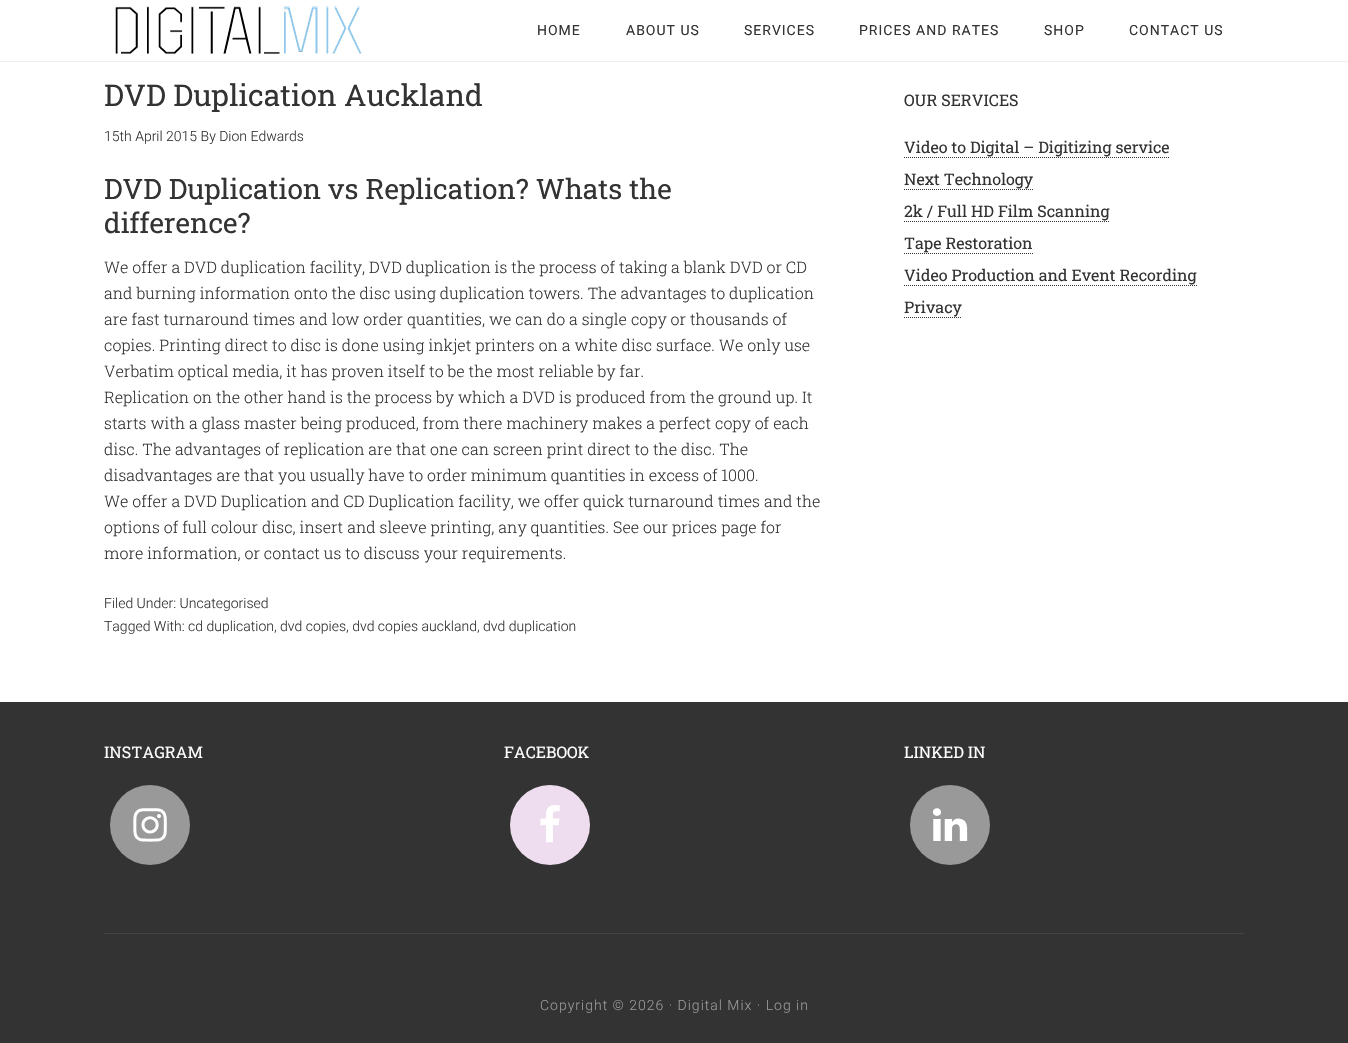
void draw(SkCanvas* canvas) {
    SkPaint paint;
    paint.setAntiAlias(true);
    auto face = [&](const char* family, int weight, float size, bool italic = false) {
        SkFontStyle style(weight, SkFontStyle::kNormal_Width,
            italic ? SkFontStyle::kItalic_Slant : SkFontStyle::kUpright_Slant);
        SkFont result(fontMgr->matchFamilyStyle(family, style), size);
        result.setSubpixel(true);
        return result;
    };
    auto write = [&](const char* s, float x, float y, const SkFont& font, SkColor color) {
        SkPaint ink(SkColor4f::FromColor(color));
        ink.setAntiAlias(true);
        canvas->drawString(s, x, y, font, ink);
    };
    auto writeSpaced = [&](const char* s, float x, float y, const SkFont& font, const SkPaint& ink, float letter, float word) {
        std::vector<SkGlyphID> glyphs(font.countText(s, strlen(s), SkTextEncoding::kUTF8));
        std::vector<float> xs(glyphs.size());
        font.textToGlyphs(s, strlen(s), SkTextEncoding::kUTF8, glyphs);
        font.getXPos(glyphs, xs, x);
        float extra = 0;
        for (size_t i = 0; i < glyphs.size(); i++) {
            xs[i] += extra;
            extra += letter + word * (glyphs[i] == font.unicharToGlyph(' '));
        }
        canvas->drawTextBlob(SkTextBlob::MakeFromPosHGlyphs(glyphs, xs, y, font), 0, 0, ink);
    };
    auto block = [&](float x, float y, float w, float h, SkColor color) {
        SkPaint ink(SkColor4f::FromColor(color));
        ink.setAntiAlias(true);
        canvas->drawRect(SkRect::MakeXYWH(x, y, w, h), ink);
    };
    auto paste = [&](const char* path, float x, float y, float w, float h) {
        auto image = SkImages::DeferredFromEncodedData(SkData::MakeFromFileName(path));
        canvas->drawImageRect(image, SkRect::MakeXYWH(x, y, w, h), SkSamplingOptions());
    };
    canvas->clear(SK_ColorWHITE);
    block(0, 61, 1348, 1, SkColorSetRGB(238, 238, 238));
    paste("pic1.png", 115, 5, 247, 50);
    auto kFont1 = face("Roboto", 400, 14);
    paint.setColor(SkColorSetRGB(51, 51, 51));
    writeSpaced("HOME", 537, 35, kFont1, paint, 1, 0);
    writeSpaced("ABOUT US", 626, 35, kFont1, paint, 1, 0);
    writeSpaced("SERVICES", 744, 35, kFont1, paint, 1, 0);
    writeSpaced("PRICES AND RATES", 859, 35, kFont1, paint, 1, 0);
    writeSpaced("SHOP", 1044, 35, kFont1, paint, 1, 0);
    writeSpaced("CONTACT US", 1129, 35, kFont1, paint, 1, 0);
    auto kFont2 = face("Roboto Slab", 400, 30);
    write("DVD Duplication Auckland", 104, 106, kFont2, SkColorSetRGB(51, 51, 51));
    auto kFont3 = face("Roboto", 300, 14);
    write("15th April 2015 By Dion Edwards", 104, 141, kFont3, SkColorSetRGB(51, 51, 51));
    auto kFont4 = face("Roboto Slab", 400, 28);
    write("DVD Duplication vs Replication? Whats the", 104, 199, kFont4, SkColorSetRGB(51, 51, 51));
    write("difference?", 104, 233, kFont4, SkColorSetRGB(51, 51, 51));
    auto kFont5 = face("Roboto Slab", 300, 16);
    write("We offer a DVD duplication facility, DVD duplication is the process of taking a blank DVD or CD", 104, 273, kFont5, SkColorSetRGB(51, 51, 51));
    write("and burning information onto the disc using duplication towers. The advantages to duplication", 104, 299, kFont5, SkColorSetRGB(51, 51, 51));
    write("are fast turnaround times and low order quantities, we can do a single copy or thousands of", 104, 325, kFont5, SkColorSetRGB(51, 51, 51));
    write("copies. Printing direct to disc is done using inkjet printers on a white disc surface. We only use", 104, 351, kFont5, SkColorSetRGB(51, 51, 51));
    write("Verbatim optical media, it has proven itself to be the most reliable by far.", 104, 377, kFont5, SkColorSetRGB(51, 51, 51));
    write("Replication on the other hand is the process by which a DVD is produced from the ground up. It", 104, 403, kFont5, SkColorSetRGB(51, 51, 51));
    write("starts with a glass master being produced, from there machinery makes a perfect copy of each", 104, 429, kFont5, SkColorSetRGB(51, 51, 51));
    write("disc. The advantages of replication are that one can screen print direct to the disc. The", 104, 455, kFont5, SkColorSetRGB(51, 51, 51));
    write("disadvantages are that you usually have to order minimum quantities in excess of 1000.", 104, 481, kFont5, SkColorSetRGB(51, 51, 51));
    write("We offer a DVD Duplication and CD Duplication facility, we offer quick turnaround times and the", 104, 507, kFont5, SkColorSetRGB(51, 51, 51));
    write("options of full colour disc, insert and sleeve printing, any quantities. See our prices page for", 104, 533, kFont5, SkColorSetRGB(51, 51, 51));
    write("more information, or contact us to discuss your requirements.", 104, 559, kFont5, SkColorSetRGB(51, 51, 51));
    write("Filed Under: Uncategorised", 104, 608, kFont3, SkColorSetRGB(51, 51, 51));
    write("Tagged With: cd duplication, dvd copies, dvd copies auckland, dvd duplication", 104, 631, kFont3, SkColorSetRGB(51, 51, 51));
    auto kFont6 = face("Roboto Slab", 400, 16);
    write("OUR SERVICES", 904, 106, kFont6, SkColorSetRGB(51, 51, 51));
    write("Video to Digital – Digitizing service", 904, 153, kFont6, SkColorSetRGB(51, 51, 51));
    paint.setStyle(SkPaint::kStroke_Style);
    paint.setStrokeWidth(1);
    paint.setPathEffect(SkDashPathEffect::Make({{1, 1}}, 0));
    canvas->drawPath(SkPathBuilder().moveTo(904, 157.5f).lineTo(1170, 157.5f).detach(), paint);
    paint.setPathEffect(nullptr);
    write("Next Technology", 904, 185, kFont6, SkColorSetRGB(51, 51, 51));
    paint.setPathEffect(SkDashPathEffect::Make({{1, 1}}, 0));
    canvas->drawPath(SkPathBuilder().moveTo(904, 189.5f).lineTo(1033, 189.5f).detach(), paint);
    paint.setPathEffect(nullptr);
    write("2k / Full HD Film Scanning", 904, 217, kFont6, SkColorSetRGB(51, 51, 51));
    paint.setPathEffect(SkDashPathEffect::Make({{1, 1}}, 0));
    canvas->drawPath(SkPathBuilder().moveTo(904, 221.5f).lineTo(1110, 221.5f).detach(), paint);
    paint.setPathEffect(nullptr);
    write("Tape Restoration", 904, 249, kFont6, SkColorSetRGB(51, 51, 51));
    paint.setPathEffect(SkDashPathEffect::Make({{1, 1}}, 0));
    canvas->drawPath(SkPathBuilder().moveTo(904, 253.5f).lineTo(1033, 253.5f).detach(), paint);
    paint.setPathEffect(nullptr);
    write("Video Production and Event Recording", 904, 281, kFont6, SkColorSetRGB(51, 51, 51));
    paint.setPathEffect(SkDashPathEffect::Make({{1, 1}}, 0));
    canvas->drawPath(SkPathBuilder().moveTo(904, 285.5f).lineTo(1197, 285.5f).detach(), paint);
    paint.setPathEffect(nullptr);
    write("Privacy", 904, 313, kFont6, SkColorSetRGB(51, 51, 51));
    paint.setPathEffect(SkDashPathEffect::Make({{1, 1}}, 0));
    canvas->drawPath(SkPathBuilder().moveTo(904, 317.5f).lineTo(962, 317.5f).detach(), paint);
    paint.setPathEffect(nullptr);
    block(0, 702, 1348, 341, SkColorSetRGB(51, 51, 51));
    block(104, 933, 1140, 1, SkColorSetRGB(68, 68, 68));
    write("INSTAGRAM", 104, 758, kFont6, SK_ColorWHITE);
    paint.setStyle(SkPaint::kFill_Style);
    paint.setColor(SkColorSetRGB(153, 153, 153));
    canvas->drawCircle(150, 825, 40, paint);
    paste("pic2.png", 133, 808, 34, 34);
    write("FACEBOOK", 504, 758, kFont6, SK_ColorWHITE);
    paint.setColor(SkColorSetRGB(238, 221, 238));
    canvas->drawCircle(550, 825, 40, paint);
    paste("pic3.png", 540, 805, 20, 38);
    write("LINKED IN", 904, 758, kFont6, SK_ColorWHITE);
    paint.setColor(SkColorSetRGB(153, 153, 153));
    canvas->drawCircle(950, 825, 40, paint);
    paste("pic4.png", 932, 808, 36, 33);
    writeSpaced("Copyright © 2026 · Digital Mix · Log in", 540, 1010, kFont3, paint, 1, 0);
}
